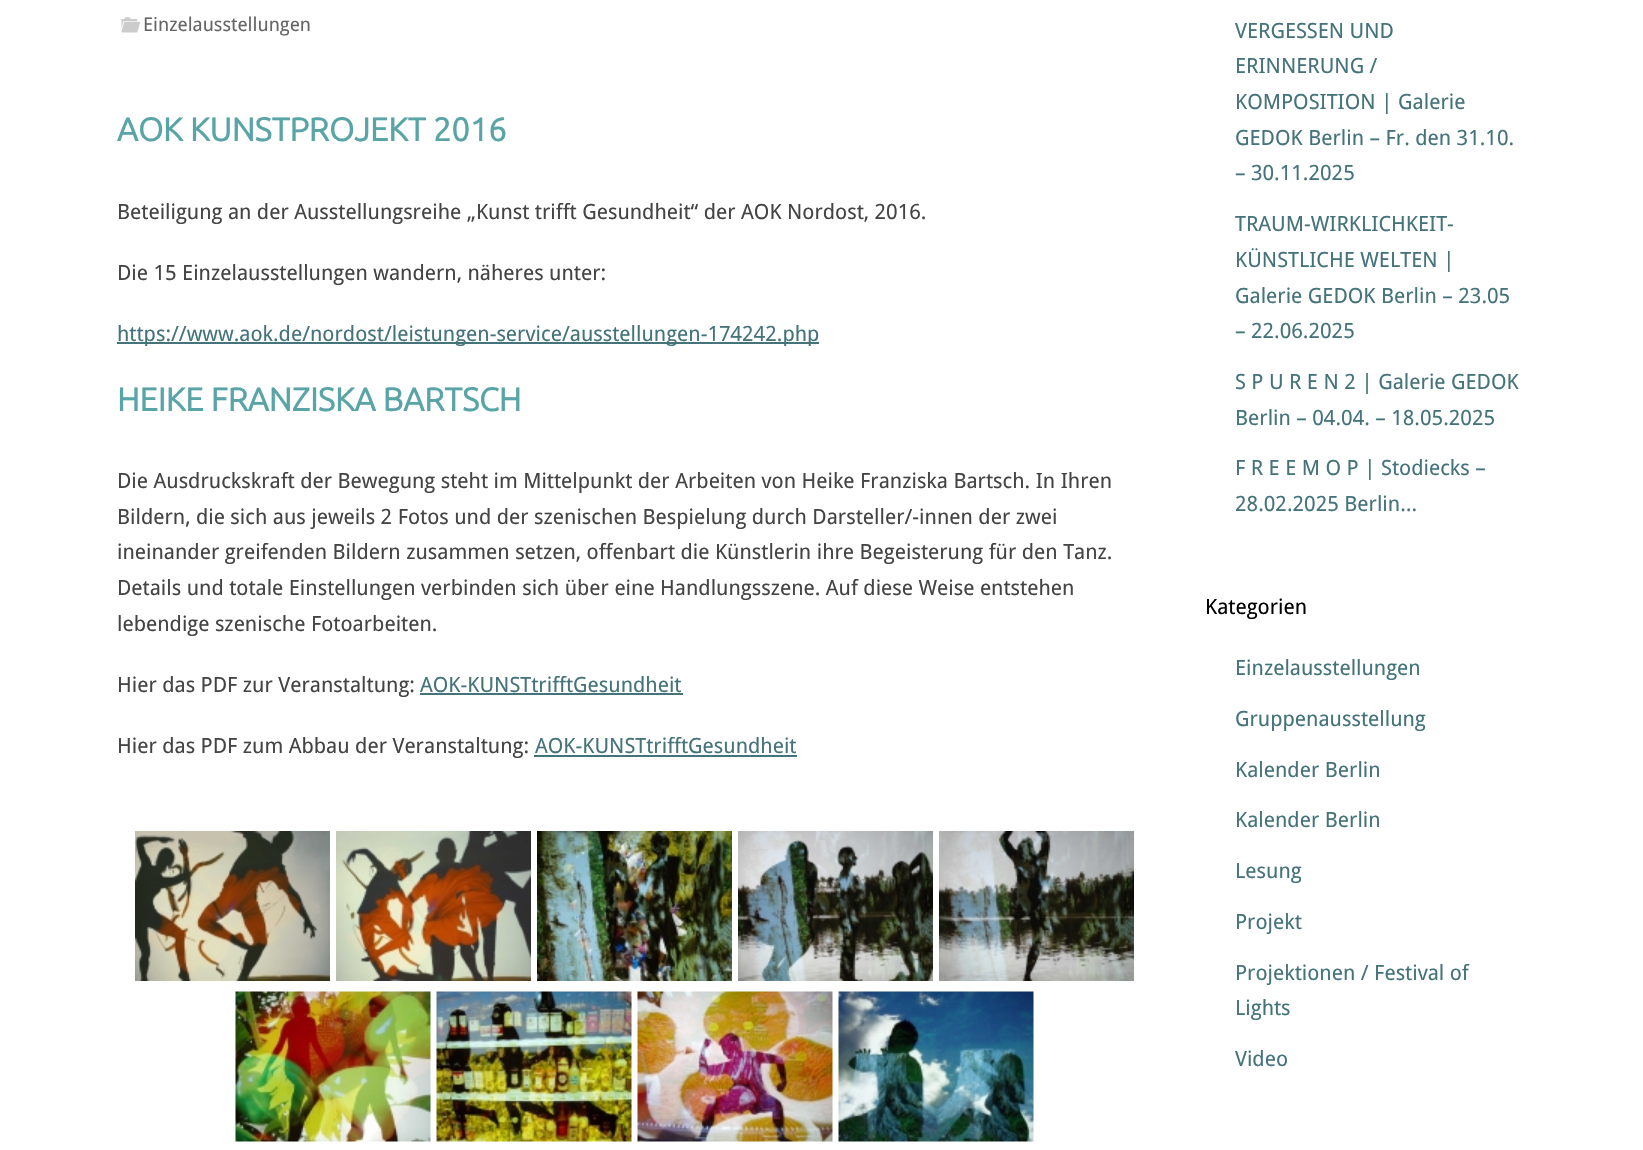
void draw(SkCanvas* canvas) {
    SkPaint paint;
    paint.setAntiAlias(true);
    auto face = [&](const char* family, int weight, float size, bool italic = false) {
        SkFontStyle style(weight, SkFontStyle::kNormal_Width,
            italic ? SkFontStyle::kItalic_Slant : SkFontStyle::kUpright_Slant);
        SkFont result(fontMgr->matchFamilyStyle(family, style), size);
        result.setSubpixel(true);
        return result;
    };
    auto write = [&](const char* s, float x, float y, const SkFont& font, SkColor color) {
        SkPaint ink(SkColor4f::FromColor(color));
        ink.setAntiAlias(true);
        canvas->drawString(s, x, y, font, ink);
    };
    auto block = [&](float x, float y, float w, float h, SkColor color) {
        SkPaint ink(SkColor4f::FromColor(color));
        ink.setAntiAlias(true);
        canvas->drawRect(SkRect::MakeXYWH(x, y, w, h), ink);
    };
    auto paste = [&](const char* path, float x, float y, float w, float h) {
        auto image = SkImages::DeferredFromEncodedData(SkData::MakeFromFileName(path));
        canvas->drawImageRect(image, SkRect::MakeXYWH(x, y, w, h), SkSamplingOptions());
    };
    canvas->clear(SK_ColorWHITE);
    paste("pic1.png", 121, 17, 20, 16);
    auto kFont1 = face("Droid Sans", 400, 19);
    write("Einzelausstellungen", 143, 31, kFont1, SkColorSetRGB(102, 102, 102));
    auto kFont2 = face("Ubuntu", 700, 32.6f);
    write("AOK KUNSTPROJEKT 2016", 117, 141, kFont2, SkColorSetRGB(88, 164, 166));
    auto kFont3 = face("Droid Sans", 400, 21);
    write("Beteiligung an der Ausstellungsreihe „Kunst trifft Gesundheit“ der AOK Nordost, 2016.", 117, 219, kFont3, SkColorSetRGB(68, 68, 68));
    write("Die 15 Einzelausstellungen wandern, näheres unter:", 117, 280, kFont3, SkColorSetRGB(68, 68, 68));
    block(117, 342, 702, 2, SkColorSetRGB(68, 115, 122));
    write("https://www.aok.de/nordost/leistungen-service/ausstellungen-174242.php", 117, 341, kFont3, SkColorSetRGB(68, 115, 122));
    write("HEIKE FRANZISKA BARTSCH", 117, 411, kFont2, SkColorSetRGB(88, 164, 166));
    write("Die Ausdruckskraft der Bewegung steht im Mittelpunkt der Arbeiten von Heike Franziska Bartsch. In Ihren", 117, 488, kFont3, SkColorSetRGB(68, 68, 68));
    write("Bildern, die sich aus jeweils 2 Fotos und der szenischen Bespielung durch Darsteller/-innen der zwei", 117, 524, kFont3, SkColorSetRGB(68, 68, 68));
    write("ineinander greifenden Bildern zusammen setzen, offenbart die Künstlerin ihre Begeisterung für den Tanz.", 117, 559, kFont3, SkColorSetRGB(68, 68, 68));
    write("Details und totale Einstellungen verbinden sich über eine Handlungsszene. Auf diese Weise entstehen", 117, 595, kFont3, SkColorSetRGB(68, 68, 68));
    write("lebendige szenische Fotoarbeiten.", 117, 631, kFont3, SkColorSetRGB(68, 68, 68));
    write("Hier das PDF zur Veranstaltung:", 117, 692, kFont3, SkColorSetRGB(68, 68, 68));
    write("AOK-KUNSTtrifftGesundheit", 420, 692, kFont3, SkColorSetRGB(68, 115, 122));
    block(420, 693, 263, 2, SkColorSetRGB(68, 115, 122));
    write("Hier das PDF zum Abbau der Veranstaltung:", 117, 753, kFont3, SkColorSetRGB(68, 68, 68));
    write("AOK-KUNSTtrifftGesundheit", 535, 753, kFont3, SkColorSetRGB(68, 115, 122));
    block(534, 755, 263, 2, SkColorSetRGB(68, 115, 122));
    paste("pic2.png", 135, 831, 195, 150);
    paste("pic3.png", 336, 831, 195, 150);
    paste("pic4.png", 537, 831, 195, 150);
    paste("pic5.png", 738, 831, 195, 150);
    paste("pic6.png", 939, 831, 195, 150);
    paste("pic7.png", 235, 991, 196, 151);
    paste("pic8.png", 436, 991, 196, 151);
    paste("pic9.png", 637, 991, 196, 151);
    paste("pic10.png", 838, 991, 196, 151);
    write("VERGESSEN UND", 1235, 38, kFont3, SkColorSetRGB(68, 115, 122));
    write("ERINNERUNG /", 1235, 73, kFont3, SkColorSetRGB(68, 115, 122));
    write("KOMPOSITION | Galerie", 1235, 109, kFont3, SkColorSetRGB(68, 115, 122));
    write("GEDOK Berlin – Fr. den 31.10.", 1235, 145, kFont3, SkColorSetRGB(68, 115, 122));
    write("– 30.11.2025", 1235, 180, kFont3, SkColorSetRGB(68, 115, 122));
    write("TRAUM-WIRKLICHKEIT-", 1235, 231, kFont3, SkColorSetRGB(68, 115, 122));
    write("KÜNSTLICHE WELTEN |", 1235, 267, kFont3, SkColorSetRGB(68, 115, 122));
    write("Galerie GEDOK Berlin – 23.05", 1235, 303, kFont3, SkColorSetRGB(68, 115, 122));
    write("– 22.06.2025", 1235, 338, kFont3, SkColorSetRGB(68, 115, 122));
    write("S P U R E N 2 | Galerie GEDOK", 1235, 389, kFont3, SkColorSetRGB(68, 115, 122));
    write("Berlin – 04.04. – 18.05.2025", 1235, 425, kFont3, SkColorSetRGB(68, 115, 122));
    write("F R E E M O P | Stodiecks –", 1235, 475, kFont3, SkColorSetRGB(68, 115, 122));
    write("28.02.2025 Berlin…", 1235, 511, kFont3, SkColorSetRGB(68, 115, 122));
    write("Kategorien", 1205, 614, kFont3, SK_ColorBLACK);
    write("Einzelausstellungen", 1235, 675, kFont3, SkColorSetRGB(68, 115, 122));
    write("Gruppenausstellung", 1235, 726, kFont3, SkColorSetRGB(68, 115, 122));
    write("Kalender Berlin", 1235, 777, kFont3, SkColorSetRGB(68, 115, 122));
    write("Kalender Berlin", 1235, 827, kFont3, SkColorSetRGB(68, 115, 122));
    write("Lesung", 1235, 878, kFont3, SkColorSetRGB(68, 115, 122));
    write("Projekt", 1235, 929, kFont3, SkColorSetRGB(68, 115, 122));
    write("Projektionen / Festival of", 1235, 980, kFont3, SkColorSetRGB(68, 115, 122));
    write("Lights", 1235, 1015, kFont3, SkColorSetRGB(68, 115, 122));
    write("Video", 1235, 1066, kFont3, SkColorSetRGB(68, 115, 122));
}
